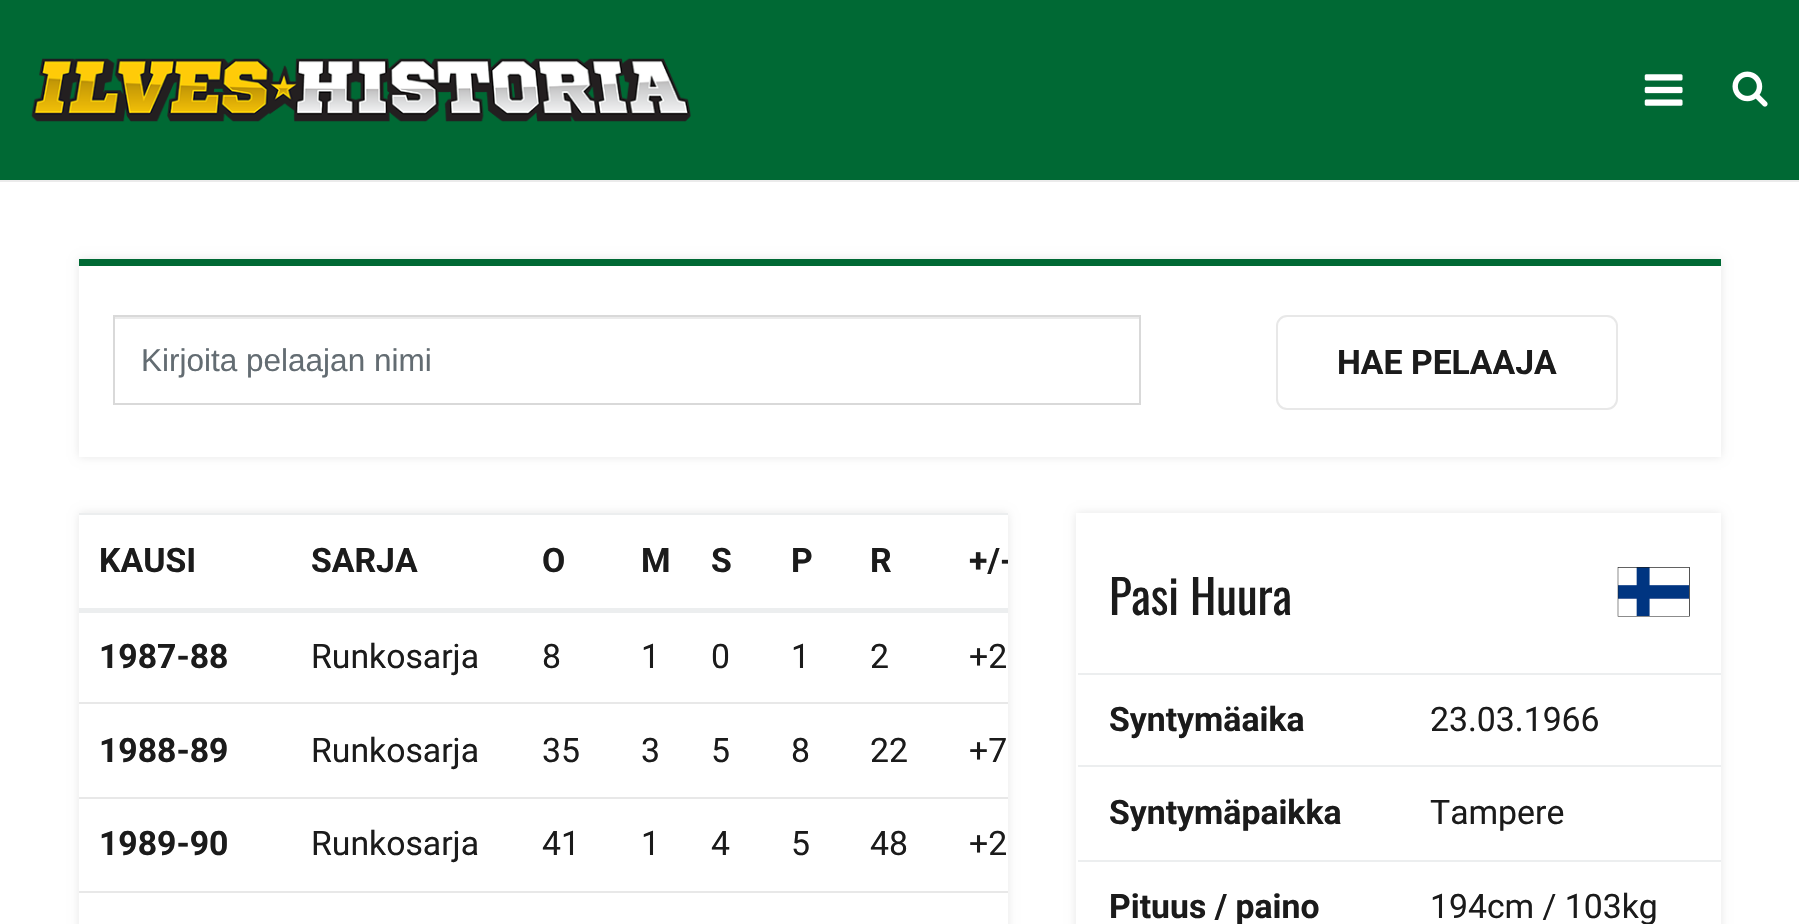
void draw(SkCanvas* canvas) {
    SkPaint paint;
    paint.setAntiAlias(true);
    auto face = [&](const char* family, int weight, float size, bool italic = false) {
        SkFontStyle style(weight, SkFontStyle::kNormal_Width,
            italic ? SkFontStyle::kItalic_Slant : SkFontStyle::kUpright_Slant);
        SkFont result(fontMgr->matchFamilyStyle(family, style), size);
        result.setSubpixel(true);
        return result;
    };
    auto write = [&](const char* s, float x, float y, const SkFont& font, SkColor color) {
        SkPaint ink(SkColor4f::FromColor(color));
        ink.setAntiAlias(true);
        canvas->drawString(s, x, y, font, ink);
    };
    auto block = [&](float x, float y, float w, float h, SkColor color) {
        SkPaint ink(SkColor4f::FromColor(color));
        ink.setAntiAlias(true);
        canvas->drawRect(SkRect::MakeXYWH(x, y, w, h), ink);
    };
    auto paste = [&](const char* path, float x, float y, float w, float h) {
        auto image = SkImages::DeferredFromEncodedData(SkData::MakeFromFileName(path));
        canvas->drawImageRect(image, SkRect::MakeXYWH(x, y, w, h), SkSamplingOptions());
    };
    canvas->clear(SK_ColorWHITE);
    block(0, 180, 1799, 2, SkColorSetRGB(235, 235, 235));
    block(0, 0, 1799, 180, SkColorSetRGB(0, 105, 52));
    paste("pic1.png", 31, 58, 660, 64);
    paste("pic2.png", 1644, 74, 39, 32);
    paste("pic3.png", 1732, 71, 36, 36);
    paint.setColor(SkColorSetRGB(231, 231, 231));
    paint.setMaskFilter(SkMaskFilter::MakeBlur(kNormal_SkBlurStyle, 4.5f));
    canvas->drawRect(SkRect::MakeXYWH(79, 259, 1642, 198), paint);
    paint.setMaskFilter(nullptr);
    block(79, 266, 1642, 191, SK_ColorWHITE);
    block(79, 259, 1642, 7, SkColorSetRGB(0, 105, 52));
    block(115, 317, 1024, 2, SkColorSetRGB(235, 235, 235));
    paint.setStyle(SkPaint::kStroke_Style);
    paint.setStrokeWidth(2);
    paint.setColor(SkColorSetRGB(217, 217, 217));
    canvas->drawRect(SkRect::MakeXYWH(114, 316, 1026, 88), paint);
    auto kFont1 = face("Liberation Sans", 400, 31.5f);
    write("Kirjoita pelaajan nimi", 141, 371, kFont1, SkColorSetRGB(99, 108, 114));
    paint.setColor(SkColorSetRGB(232, 232, 232));
    canvas->drawRoundRect(SkRect::MakeXYWH(1277, 316, 340, 93), 10, 10, paint);
    auto kFont2 = face("Roboto", 700, 33.75f);
    write("HAE PELAAJA", 1337, 374, kFont2, SkColorSetRGB(27, 27, 27));
    canvas->save();
    canvas->clipPath(SkPathBuilder(SkPathFillType::kEvenOdd).moveTo(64, 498).lineTo(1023, 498).lineTo(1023, 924).lineTo(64, 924).close().moveTo(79, 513).lineTo(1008, 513).lineTo(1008, 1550).lineTo(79, 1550).close().detach(), true);
    paint.setStyle(SkPaint::kFill_Style);
    paint.setColor(SkColorSetRGB(231, 231, 231));
    paint.setMaskFilter(SkMaskFilter::MakeBlur(kNormal_SkBlurStyle, 4.5f));
    canvas->drawRect(SkRect::MakeXYWH(79, 513, 929, 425), paint);
    paint.setMaskFilter(nullptr);
    canvas->restore();
    write("KAUSI", 99, 572, kFont2, SkColorSetRGB(27, 27, 27));
    write("SARJA", 311, 572, kFont2, SkColorSetRGB(27, 27, 27));
    write("O", 542, 572, kFont2, SkColorSetRGB(27, 27, 27));
    write("M", 641, 572, kFont2, SkColorSetRGB(27, 27, 27));
    write("S", 711, 572, kFont2, SkColorSetRGB(27, 27, 27));
    write("P", 791, 572, kFont2, SkColorSetRGB(27, 27, 27));
    write("R", 870, 572, kFont2, SkColorSetRGB(27, 27, 27));
    block(79, 513, 929, 2, SkColorSetRGB(236, 238, 239));
    block(79, 608, 929, 5, SkColorSetRGB(236, 238, 239));
    canvas->save();
    canvas->clipRect(SkRect::MakeXYWH(79, 513, 929, 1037));
    write("+/-", 969, 572, kFont2, SkColorSetRGB(27, 27, 27));
    canvas->restore();
    write("1987-88", 99, 668, kFont2, SkColorSetRGB(27, 27, 27));
    auto kFont3 = face("Roboto", 400, 33.75f);
    write("Runkosarja", 311, 668, kFont3, SkColorSetRGB(27, 27, 27));
    write("8", 542, 668, kFont3, SkColorSetRGB(27, 27, 27));
    write("1", 641, 668, kFont3, SkColorSetRGB(27, 27, 27));
    write("0", 711, 668, kFont3, SkColorSetRGB(27, 27, 27));
    write("1", 791, 668, kFont3, SkColorSetRGB(27, 27, 27));
    write("2", 870, 668, kFont3, SkColorSetRGB(27, 27, 27));
    block(79, 702, 929, 2, SkColorSetRGB(232, 232, 232));
    write("+2", 969, 668, kFont3, SkColorSetRGB(27, 27, 27));
    write("1988-89", 99, 762, kFont2, SkColorSetRGB(27, 27, 27));
    write("Runkosarja", 311, 762, kFont3, SkColorSetRGB(27, 27, 27));
    write("35", 542, 762, kFont3, SkColorSetRGB(27, 27, 27));
    write("3", 641, 762, kFont3, SkColorSetRGB(27, 27, 27));
    write("5", 711, 762, kFont3, SkColorSetRGB(27, 27, 27));
    write("8", 791, 762, kFont3, SkColorSetRGB(27, 27, 27));
    write("22", 870, 762, kFont3, SkColorSetRGB(27, 27, 27));
    block(79, 797, 929, 2, SkColorSetRGB(232, 232, 232));
    write("+7", 969, 762, kFont3, SkColorSetRGB(27, 27, 27));
    write("1989-90", 99, 855, kFont2, SkColorSetRGB(27, 27, 27));
    write("Runkosarja", 311, 855, kFont3, SkColorSetRGB(27, 27, 27));
    write("41", 542, 855, kFont3, SkColorSetRGB(27, 27, 27));
    write("1", 641, 855, kFont3, SkColorSetRGB(27, 27, 27));
    write("4", 711, 855, kFont3, SkColorSetRGB(27, 27, 27));
    write("5", 791, 855, kFont3, SkColorSetRGB(27, 27, 27));
    write("48", 870, 855, kFont3, SkColorSetRGB(27, 27, 27));
    block(79, 891, 929, 2, SkColorSetRGB(232, 232, 232));
    write("+2", 969, 855, kFont3, SkColorSetRGB(27, 27, 27));
    canvas->save();
    canvas->clipPath(SkPathBuilder(SkPathFillType::kEvenOdd).moveTo(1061, 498).lineTo(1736, 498).lineTo(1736, 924).lineTo(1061, 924).close().moveTo(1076, 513).lineTo(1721, 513).lineTo(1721, 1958).lineTo(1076, 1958).close().detach(), true);
    paint.setMaskFilter(SkMaskFilter::MakeBlur(kNormal_SkBlurStyle, 4.5f));
    canvas->drawRect(SkRect::MakeXYWH(1076, 513, 645, 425), paint);
    paint.setMaskFilter(nullptr);
    canvas->restore();
    auto kFont4 = face("Oswald", 400, 47);
    write("Pasi Huura", 1109, 615, kFont4, SkColorSetRGB(27, 27, 27));
    paste("pic4.png", 1617, 567, 73, 50);
    block(1078, 673, 643, 2, SkColorSetRGB(236, 238, 239));
    write("Syntymäaika", 1109, 731, kFont2, SkColorSetRGB(27, 27, 27));
    write("23.03.1966", 1430, 731, kFont3, SkColorSetRGB(27, 27, 27));
    block(1078, 765, 643, 2, SkColorSetRGB(236, 238, 239));
    write("Syntymäpaikka", 1109, 824, kFont2, SkColorSetRGB(27, 27, 27));
    write("Tampere", 1430, 824, kFont3, SkColorSetRGB(27, 27, 27));
    block(1078, 860, 643, 2, SkColorSetRGB(236, 238, 239));
    write("Pituus / paino", 1109, 918, kFont2, SkColorSetRGB(27, 27, 27));
    write("194cm / 103kg", 1430, 918, kFont3, SkColorSetRGB(27, 27, 27));
}
